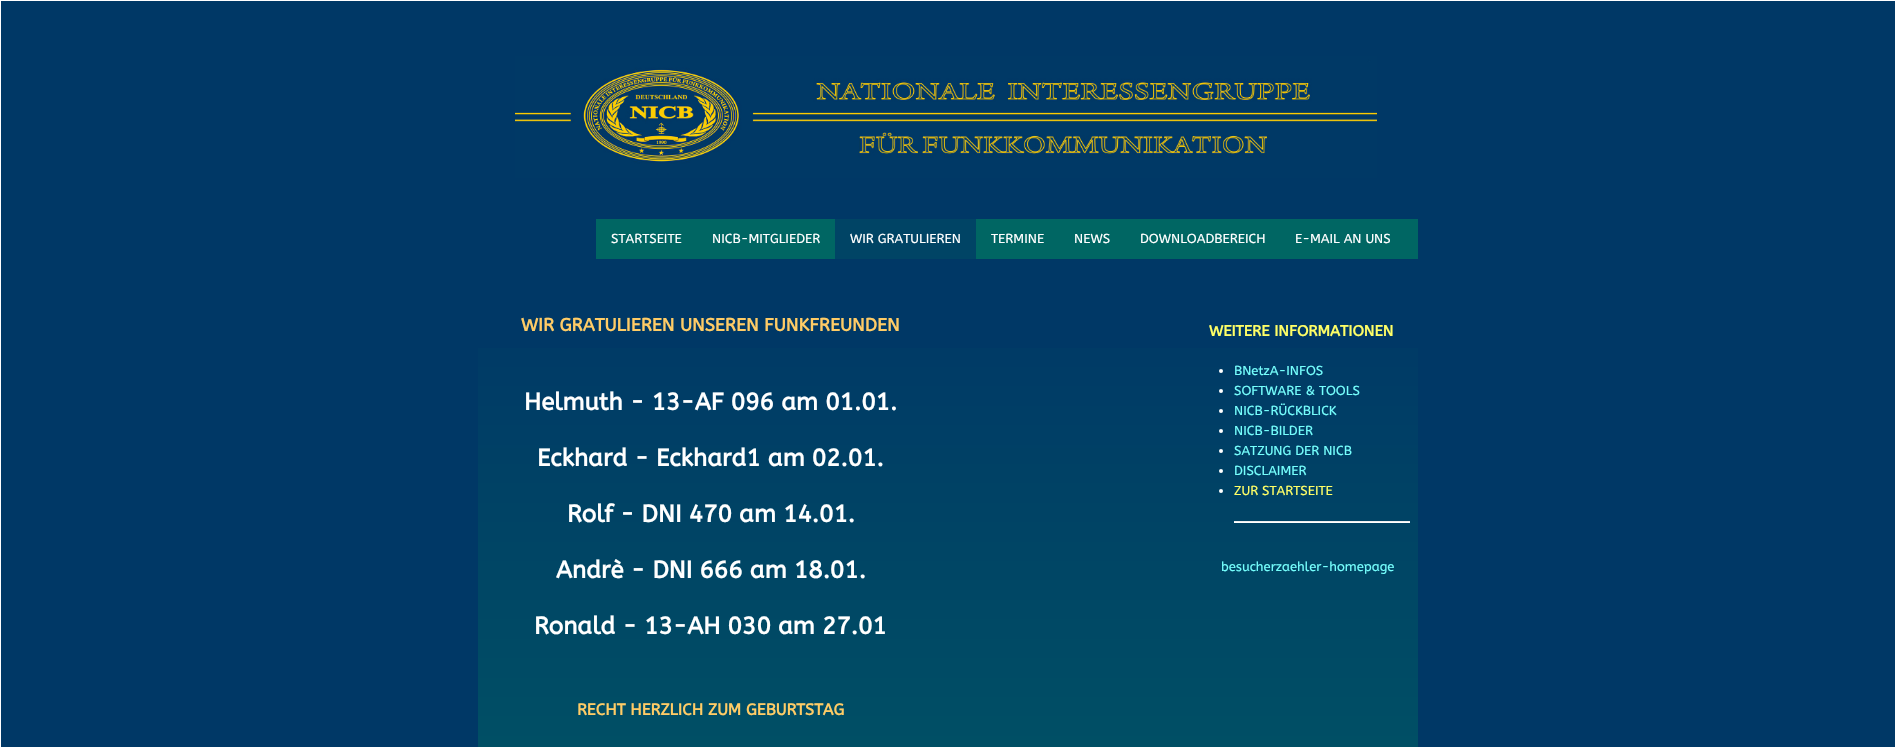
void draw(SkCanvas* canvas) {
    SkPaint paint;
    paint.setAntiAlias(true);
    auto face = [&](const char* family, int weight, float size, bool italic = false) {
        SkFontStyle style(weight, SkFontStyle::kNormal_Width,
            italic ? SkFontStyle::kItalic_Slant : SkFontStyle::kUpright_Slant);
        SkFont result(fontMgr->matchFamilyStyle(family, style), size);
        result.setSubpixel(true);
        return result;
    };
    auto write = [&](const char* s, float x, float y, const SkFont& font, SkColor color) {
        SkPaint ink(SkColor4f::FromColor(color));
        ink.setAntiAlias(true);
        canvas->drawString(s, x, y, font, ink);
    };
    auto block = [&](float x, float y, float w, float h, SkColor color) {
        SkPaint ink(SkColor4f::FromColor(color));
        ink.setAntiAlias(true);
        canvas->drawRect(SkRect::MakeXYWH(x, y, w, h), ink);
    };
    auto paste = [&](const char* path, float x, float y, float w, float h) {
        auto image = SkImages::DeferredFromEncodedData(SkData::MakeFromFileName(path));
        canvas->drawImageRect(image, SkRect::MakeXYWH(x, y, w, h), SkSamplingOptions());
    };
    canvas->clear(SkColorSetRGB(0, 56, 102));
    paint.setStyle(SkPaint::kStroke_Style);
    paint.setStrokeWidth(1);
    paint.setColor(SK_ColorWHITE);
    canvas->drawRect(SkRect::MakeXYWH(0.5f, 0.5f, 1895, 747), paint);
    paste("pic1.png", 515, 56, 862, 122);
    block(596, 219, 822, 40, SkColorSetRGB(0, 102, 99));
    auto kFont1 = face("ABeeZee", 400, 13);
    write("STARTSEITE", 611, 243, kFont1, SK_ColorWHITE);
    write("NICB-MITGLIEDER", 712, 243, kFont1, SK_ColorWHITE);
    block(835, 219, 141, 40, SkColorSetRGB(0, 68, 101));
    write("WIR GRATULIEREN", 850, 243, kFont1, SK_ColorWHITE);
    write("TERMINE", 991, 243, kFont1, SK_ColorWHITE);
    write("NEWS", 1074, 243, kFont1, SK_ColorWHITE);
    write("DOWNLOADBEREICH", 1140, 243, kFont1, SK_ColorWHITE);
    write("E-MAIL AN UNS", 1295, 243, kFont1, SK_ColorWHITE);
    paint.setStyle(SkPaint::kFill_Style);
    {
        const SkColor colors[] = {SkColorSetRGB(0, 56, 102), SkColorSetRGB(0, 102, 99)};
        const float stops[] = {0, 1};
        const SkPoint ends[] = {{948, 299}, {948, 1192}};
        paint.setShader(SkGradientShader::MakeLinear(ends, colors, stops, 2, SkTileMode::kClamp));
        paint.setAlpha(255);
    }
    canvas->drawRect(SkRect::MakeXYWH(478, 348, 940, 399), paint);
    auto kFont2 = face("ABeeZee", 700, 18);
    write("WIR GRATULIEREN UNSEREN FUNKFREUNDEN", 521, 331, kFont2, SkColorSetRGB(255, 204, 102));
    auto kFont3 = face("ABeeZee", 700, 24);
    write("Helmuth - 13-AF 096 am 01.01.", 524, 410, kFont3, SK_ColorWHITE);
    write("Eckhard - Eckhard1 am 02.01.", 537, 466, kFont3, SK_ColorWHITE);
    write("Rolf - DNI 470 am 14.01.", 567, 522, kFont3, SK_ColorWHITE);
    write("Andrè - DNI 666 am 18.01.", 556, 578, kFont3, SK_ColorWHITE);
    write("Ronald - 13-AH 030 am 27.01", 534, 634, kFont3, SK_ColorWHITE);
    auto kFont4 = face("ABeeZee", 700, 16);
    write("RECHT HERZLICH ZUM GEBURTSTAG", 577, 715, kFont4, SkColorSetRGB(255, 204, 102));
    auto kFont5 = face("ABeeZee", 700, 15);
    write("WEITERE INFORMATIONEN", 1209, 336, kFont5, SkColorSetRGB(255, 255, 102));
    paint.setShader(nullptr);
    paint.setColor(SK_ColorWHITE);
    canvas->drawCircle(1221, 371, 2, paint);
    write("BNetzA-INFOS", 1234, 375, kFont1, SkColorSetRGB(117, 255, 253));
    canvas->drawCircle(1221, 391, 2, paint);
    write("SOFTWARE & TOOLS", 1234, 395, kFont1, SkColorSetRGB(117, 255, 253));
    canvas->drawCircle(1221, 411, 2, paint);
    write("NICB-RÜCKBLICK", 1234, 415, kFont1, SkColorSetRGB(117, 255, 253));
    canvas->drawCircle(1221, 431, 2, paint);
    write("NICB-BILDER", 1234, 435, kFont1, SkColorSetRGB(117, 255, 253));
    canvas->drawCircle(1221, 451, 2, paint);
    write("SATZUNG DER NICB", 1234, 455, kFont1, SkColorSetRGB(117, 255, 253));
    canvas->drawCircle(1221, 471, 2, paint);
    write("DISCLAIMER", 1234, 475, kFont1, SkColorSetRGB(117, 255, 253));
    canvas->drawCircle(1221, 491, 2, paint);
    write("ZUR STARTSEITE", 1234, 495, kFont1, SkColorSetRGB(255, 255, 102));
    block(1234, 521, 176, 1, SkColorSetRGB(238, 238, 238));
    block(1234, 522, 176, 1, SK_ColorWHITE);
    write("besucherzaehler-homepage", 1221, 571, kFont1, SkColorSetRGB(117, 255, 253));
}
